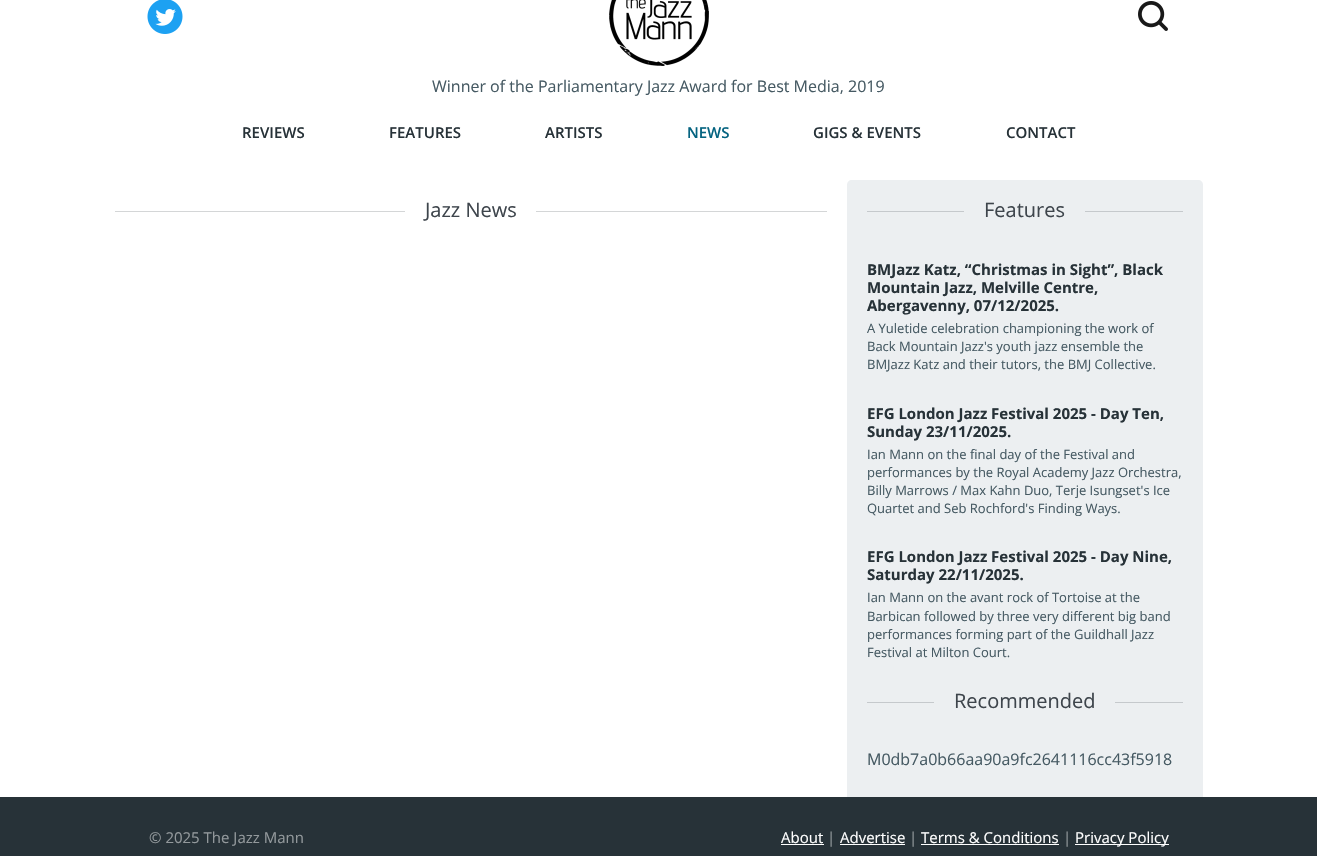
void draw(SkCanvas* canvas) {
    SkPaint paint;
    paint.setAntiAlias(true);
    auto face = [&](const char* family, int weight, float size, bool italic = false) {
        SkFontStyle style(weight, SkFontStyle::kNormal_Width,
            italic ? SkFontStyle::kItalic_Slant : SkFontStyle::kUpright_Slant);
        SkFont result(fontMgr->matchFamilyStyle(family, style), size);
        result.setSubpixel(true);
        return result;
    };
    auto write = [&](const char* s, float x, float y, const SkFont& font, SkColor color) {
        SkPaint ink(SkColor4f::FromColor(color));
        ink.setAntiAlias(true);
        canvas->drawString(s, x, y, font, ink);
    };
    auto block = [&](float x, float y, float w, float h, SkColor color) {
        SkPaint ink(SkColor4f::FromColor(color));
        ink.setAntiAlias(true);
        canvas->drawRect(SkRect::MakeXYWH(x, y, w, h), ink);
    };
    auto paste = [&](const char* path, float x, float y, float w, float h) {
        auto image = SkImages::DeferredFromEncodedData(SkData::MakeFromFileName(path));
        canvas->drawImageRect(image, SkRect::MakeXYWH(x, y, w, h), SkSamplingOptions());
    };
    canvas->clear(SK_ColorWHITE);
    paste("pic1.png", 147, 0, 36, 34);
    paste("pic2.png", 609, 0, 100, 66);
    paste("pic3.png", 1138, 1, 30, 30);
    auto kFont1 = face("Open Sans", 400, 16);
    write("Winner of the Parliamentary Jazz Award for Best Media, 2019", 432, 92, kFont1, SkColorSetRGB(70, 90, 99));
    auto kFont2 = face("Open Sans", 600, 15);
    write("REVIEWS", 242, 138, kFont2, SkColorSetRGB(39, 50, 56));
    write("FEATURES", 389, 138, kFont2, SkColorSetRGB(39, 50, 56));
    write("ARTISTS", 545, 138, kFont2, SkColorSetRGB(39, 50, 56));
    write("NEWS", 687, 138, kFont2, SkColorSetRGB(4, 99, 128));
    write("GIGS & EVENTS", 813, 138, kFont2, SkColorSetRGB(39, 50, 56));
    write("CONTACT", 1006, 138, kFont2, SkColorSetRGB(39, 50, 56));
    block(115, 211, 712, 1, SkColorSetRGB(212, 214, 215));
    block(405, 211, 131, 1, SK_ColorWHITE);
    auto kFont3 = face("Open Sans", 400, 20);
    write("Jazz News", 425, 217, kFont3, SkColorSetRGB(62, 69, 76));
    paint.setColor(SkColorSetRGB(236, 239, 241));
    canvas->drawPath(SkPathBuilder().moveTo(852, 180).lineTo(1198, 180).cubicTo(1201, 180, 1203, 182, 1203, 185).lineTo(1203, 797).lineTo(847, 797).lineTo(847, 185).cubicTo(847, 182, 849, 180, 852, 180).close().detach(), paint);
    block(867, 211, 316, 1, SkColorSetRGB(197, 201, 204));
    block(964, 211, 121, 1, SkColorSetRGB(236, 239, 241));
    write("Features", 984, 217, kFont3, SkColorSetRGB(62, 69, 76));
    auto kFont4 = face("Open Sans", 700, 15);
    write("BMJazz Katz, “Christmas in Sight”, Black", 867, 275, kFont4, SkColorSetRGB(39, 50, 56));
    write("Mountain Jazz, Melville Centre,", 867, 293, kFont4, SkColorSetRGB(39, 50, 56));
    write("Abergavenny, 07/12/2025.", 867, 311, kFont4, SkColorSetRGB(39, 50, 56));
    auto kFont5 = face("Open Sans", 400, 13);
    write("A Yuletide celebration championing the work of", 867, 333, kFont5, SkColorSetRGB(70, 90, 99));
    write("Back Mountain Jazz's youth jazz ensemble the", 867, 351, kFont5, SkColorSetRGB(70, 90, 99));
    write("BMJazz Katz and their tutors, the BMJ Collective.", 867, 369, kFont5, SkColorSetRGB(70, 90, 99));
    write("EFG London Jazz Festival 2025 - Day Ten,", 867, 419, kFont4, SkColorSetRGB(39, 50, 56));
    write("Sunday 23/11/2025.", 867, 437, kFont4, SkColorSetRGB(39, 50, 56));
    write("Ian Mann on the final day of the Festival and", 867, 459, kFont5, SkColorSetRGB(70, 90, 99));
    write("performances by the Royal Academy Jazz Orchestra,", 867, 477, kFont5, SkColorSetRGB(70, 90, 99));
    write("Billy Marrows / Max Kahn Duo, Terje Isungset's Ice", 867, 495, kFont5, SkColorSetRGB(70, 90, 99));
    write("Quartet and Seb Rochford's Finding Ways.", 867, 513, kFont5, SkColorSetRGB(70, 90, 99));
    write("EFG London Jazz Festival 2025 - Day Nine,", 867, 562, kFont4, SkColorSetRGB(39, 50, 56));
    write("Saturday 22/11/2025.", 867, 580, kFont4, SkColorSetRGB(39, 50, 56));
    write("Ian Mann on the avant rock of Tortoise at the", 867, 602, kFont5, SkColorSetRGB(70, 90, 99));
    write("Barbican followed by three very different big band", 867, 621, kFont5, SkColorSetRGB(70, 90, 99));
    write("performances forming part of the Guildhall Jazz", 867, 639, kFont5, SkColorSetRGB(70, 90, 99));
    write("Festival at Milton Court.", 867, 657, kFont5, SkColorSetRGB(70, 90, 99));
    block(867, 702, 316, 1, SkColorSetRGB(197, 201, 204));
    block(934, 702, 181, 1, SkColorSetRGB(236, 239, 241));
    write("Recommended", 954, 708, kFont3, SkColorSetRGB(62, 69, 76));
    write("M0db7a0b66aa90a9fc2641116cc43f5918", 867, 765, kFont1, SkColorSetRGB(70, 90, 99));
    block(0, 797, 1317, 59, SkColorSetRGB(39, 50, 56));
    auto kFont6 = face("Open Sans", 400, 15);
    write("© 2025 The Jazz Mann", 149, 843, kFont6, SkColorSetRGB(147, 153, 156));
    write("About", 781, 843, kFont6, SK_ColorWHITE);
    block(781, 844, 43, 1, SK_ColorWHITE);
    write("|", 827, 843, kFont6, SkColorSetRGB(147, 153, 156));
    write("Advertise", 840, 843, kFont6, SK_ColorWHITE);
    block(840, 844, 65, 1, SK_ColorWHITE);
    write("|", 909, 843, kFont6, SkColorSetRGB(147, 153, 156));
    write("Terms & Conditions", 921, 843, kFont6, SK_ColorWHITE);
    block(921, 844, 138, 1, SK_ColorWHITE);
    write("|", 1063, 843, kFont6, SkColorSetRGB(147, 153, 156));
    block(1075, 844, 94, 1, SK_ColorWHITE);
    write("Privacy Policy", 1075, 843, kFont6, SK_ColorWHITE);
}
